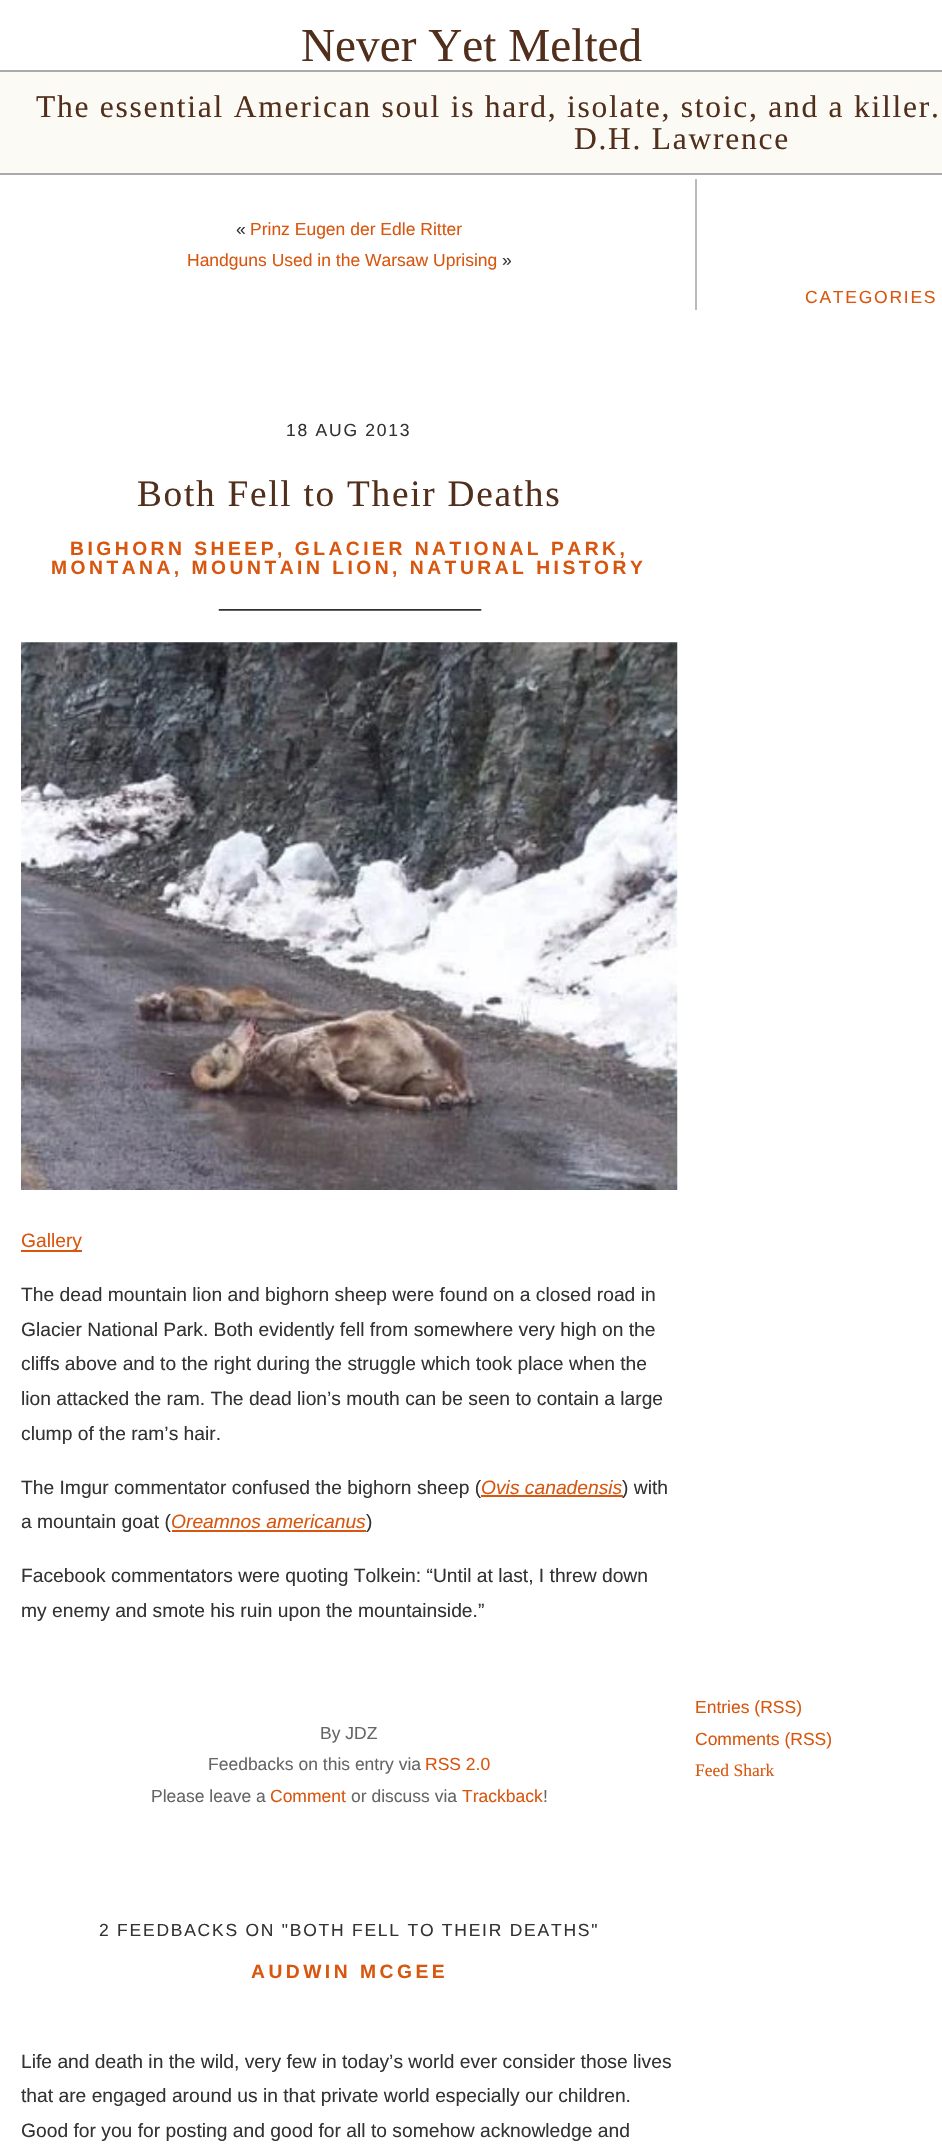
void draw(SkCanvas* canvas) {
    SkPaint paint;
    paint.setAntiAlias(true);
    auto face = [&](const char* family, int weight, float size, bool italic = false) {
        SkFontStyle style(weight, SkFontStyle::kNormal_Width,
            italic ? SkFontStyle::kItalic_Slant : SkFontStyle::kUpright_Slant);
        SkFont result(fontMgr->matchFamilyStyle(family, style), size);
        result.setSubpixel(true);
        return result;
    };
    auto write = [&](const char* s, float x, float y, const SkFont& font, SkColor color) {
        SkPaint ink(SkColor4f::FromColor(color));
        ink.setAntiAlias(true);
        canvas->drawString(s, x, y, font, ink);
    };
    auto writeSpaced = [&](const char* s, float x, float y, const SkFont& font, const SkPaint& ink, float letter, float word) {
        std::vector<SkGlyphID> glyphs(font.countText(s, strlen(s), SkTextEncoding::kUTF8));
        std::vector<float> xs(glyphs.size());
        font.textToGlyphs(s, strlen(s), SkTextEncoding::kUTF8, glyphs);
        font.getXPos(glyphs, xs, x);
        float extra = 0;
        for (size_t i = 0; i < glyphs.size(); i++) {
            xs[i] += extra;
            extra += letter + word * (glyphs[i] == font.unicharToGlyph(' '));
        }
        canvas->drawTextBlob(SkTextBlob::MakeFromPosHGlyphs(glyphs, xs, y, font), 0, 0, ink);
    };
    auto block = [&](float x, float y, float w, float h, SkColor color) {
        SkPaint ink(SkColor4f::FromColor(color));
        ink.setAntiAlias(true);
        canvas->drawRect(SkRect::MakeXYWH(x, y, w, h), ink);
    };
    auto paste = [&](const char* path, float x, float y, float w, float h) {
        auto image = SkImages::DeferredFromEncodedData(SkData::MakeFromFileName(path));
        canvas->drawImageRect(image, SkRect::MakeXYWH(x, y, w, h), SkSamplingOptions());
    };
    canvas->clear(SK_ColorWHITE);
    auto kFont1 = face("Liberation Serif", 400, 47.25f);
    write("Never Yet Melted", 301, 61, kFont1, SkColorSetRGB(82, 47, 28));
    block(0, 72, 942, 101, SkColorSetRGB(251, 250, 244));
    block(0, 70, 942, 2, SkColorSetRGB(170, 170, 170));
    block(0, 173, 942, 2, SkColorSetRGB(170, 170, 170));
    auto kFont2 = face("Liberation Serif", 400, 31.5f);
    paint.setColor(SkColorSetRGB(82, 47, 28));
    writeSpaced("The essential American soul is hard, isolate, stoic, and a killer.", 36, 117, kFont2, paint, 1.75f, 0);
    writeSpaced("D.H. Lawrence", 574, 149, kFont2, paint, 1.75f, 0);
    auto kFont3 = face("Liberation Sans", 400, 17.5f);
    write("«", 236, 235, kFont3, SkColorSetRGB(51, 51, 51));
    write("Prinz Eugen der Edle Ritter", 250, 235, kFont3, SkColorSetRGB(217, 86, 15));
    write("Handguns Used in the Warsaw Uprising", 187, 266, kFont3, SkColorSetRGB(217, 86, 15));
    write("»", 502, 266, kFont3, SkColorSetRGB(51, 51, 51));
    paint.setColor(SkColorSetRGB(51, 51, 51));
    writeSpaced("18 AUG 2013", 286, 436, kFont3, paint, 1.75f, 0);
    auto kFont4 = face("Liberation Serif", 400, 37.25f);
    paint.setColor(SkColorSetRGB(82, 47, 28));
    writeSpaced("Both Fell to Their Deaths", 137, 506, kFont4, paint, 1.75f, 0);
    auto kFont5 = face("Liberation Sans", 700, 19.25f);
    paint.setColor(SkColorSetRGB(217, 86, 15));
    writeSpaced("BIGHORN SHEEP, GLACIER NATIONAL PARK,", 70, 555, kFont5, paint, 3.5f, 0);
    writeSpaced("MONTANA, MOUNTAIN LION, NATURAL HISTORY", 51, 574, kFont5, paint, 3.5f, 0);
    paste("pic1.png", 218, 609, 264, 2);
    paste("pic2.png", 21, 642, 657, 548);
    block(21, 1250, 61, 2, SkColorSetRGB(217, 86, 15));
    auto kFont6 = face("Liberation Sans", 400, 19.25f);
    write("Gallery", 21, 1247, kFont6, SkColorSetRGB(217, 86, 15));
    write("The dead mountain lion and bighorn sheep were found on a closed road in", 21, 1301, kFont6, SkColorSetRGB(51, 51, 51));
    write("Glacier National Park. Both evidently fell from somewhere very high on the", 21, 1336, kFont6, SkColorSetRGB(51, 51, 51));
    write("cliffs above and to the right during the struggle which took place when the", 21, 1370, kFont6, SkColorSetRGB(51, 51, 51));
    write("lion attacked the ram. The dead lion’s mouth can be seen to contain a large", 21, 1405, kFont6, SkColorSetRGB(51, 51, 51));
    write("clump of the ram’s hair.", 21, 1440, kFont6, SkColorSetRGB(51, 51, 51));
    write("The Imgur commentator confused the bighorn sheep (", 21, 1494, kFont6, SkColorSetRGB(51, 51, 51));
    auto kFont7 = face("Liberation Sans", 400, 19.25f, true);
    write("Ovis canadensis", 481, 1494, kFont7, SkColorSetRGB(217, 86, 15));
    block(481, 1495, 142, 2, SkColorSetRGB(217, 86, 15));
    write(") with", 622, 1494, kFont6, SkColorSetRGB(51, 51, 51));
    write("a mountain goat (", 21, 1528, kFont6, SkColorSetRGB(51, 51, 51));
    write("Oreamnos americanus", 171, 1528, kFont7, SkColorSetRGB(217, 86, 15));
    block(172, 1530, 194, 2, SkColorSetRGB(217, 86, 15));
    write(")", 366, 1528, kFont6, SkColorSetRGB(51, 51, 51));
    write("Facebook commentators were quoting Tolkein: “Until at last, I threw down", 21, 1582, kFont6, SkColorSetRGB(51, 51, 51));
    write("my enemy and smote his ruin upon the mountainside.”", 21, 1617, kFont6, SkColorSetRGB(51, 51, 51));
    write("By JDZ", 320, 1739, kFont3, SkColorSetRGB(102, 102, 102));
    write("Feedbacks on this entry via", 208, 1770, kFont3, SkColorSetRGB(102, 102, 102));
    write("RSS 2.0", 425, 1770, kFont3, SkColorSetRGB(217, 86, 15));
    write("Please leave a", 151, 1802, kFont3, SkColorSetRGB(102, 102, 102));
    write("Comment", 270, 1802, kFont3, SkColorSetRGB(217, 86, 15));
    write("or discuss via", 351, 1802, kFont3, SkColorSetRGB(102, 102, 102));
    write("Trackback", 462, 1802, kFont3, SkColorSetRGB(217, 86, 15));
    write("!", 543, 1802, kFont3, SkColorSetRGB(102, 102, 102));
    paint.setColor(SkColorSetRGB(51, 51, 51));
    writeSpaced("2 FEEDBACKS ON \"BOTH FELL TO THEIR DEATHS\"", 99, 1936, kFont3, paint, 1.75f, 0);
    paint.setColor(SkColorSetRGB(217, 86, 15));
    writeSpaced("AUDWIN MCGEE", 251, 1978, kFont5, paint, 3.5f, 0);
    write("Life and death in the wild, very few in today’s world ever consider those lives", 21, 2068, kFont6, SkColorSetRGB(51, 51, 51));
    write("that are engaged around us in that private world especially our children.", 21, 2102, kFont6, SkColorSetRGB(51, 51, 51));
    write("Good for you for posting and good for all to somehow acknowledge and", 21, 2137, kFont6, SkColorSetRGB(51, 51, 51));
    block(695, 179, 2, 131, SkColorSetRGB(187, 187, 187));
    writeSpaced("CATEGORIES", 805, 303, kFont3, paint, 1.75f, 0);
    write("Entries (RSS)", 695, 1713, kFont3, SkColorSetRGB(217, 86, 15));
    write("Comments (RSS)", 695, 1745, kFont3, SkColorSetRGB(217, 86, 15));
    auto kFont8 = face("Liberation Serif", 400, 17.5f);
    write("Feed Shark", 695, 1776, kFont8, SkColorSetRGB(217, 86, 15));
}
